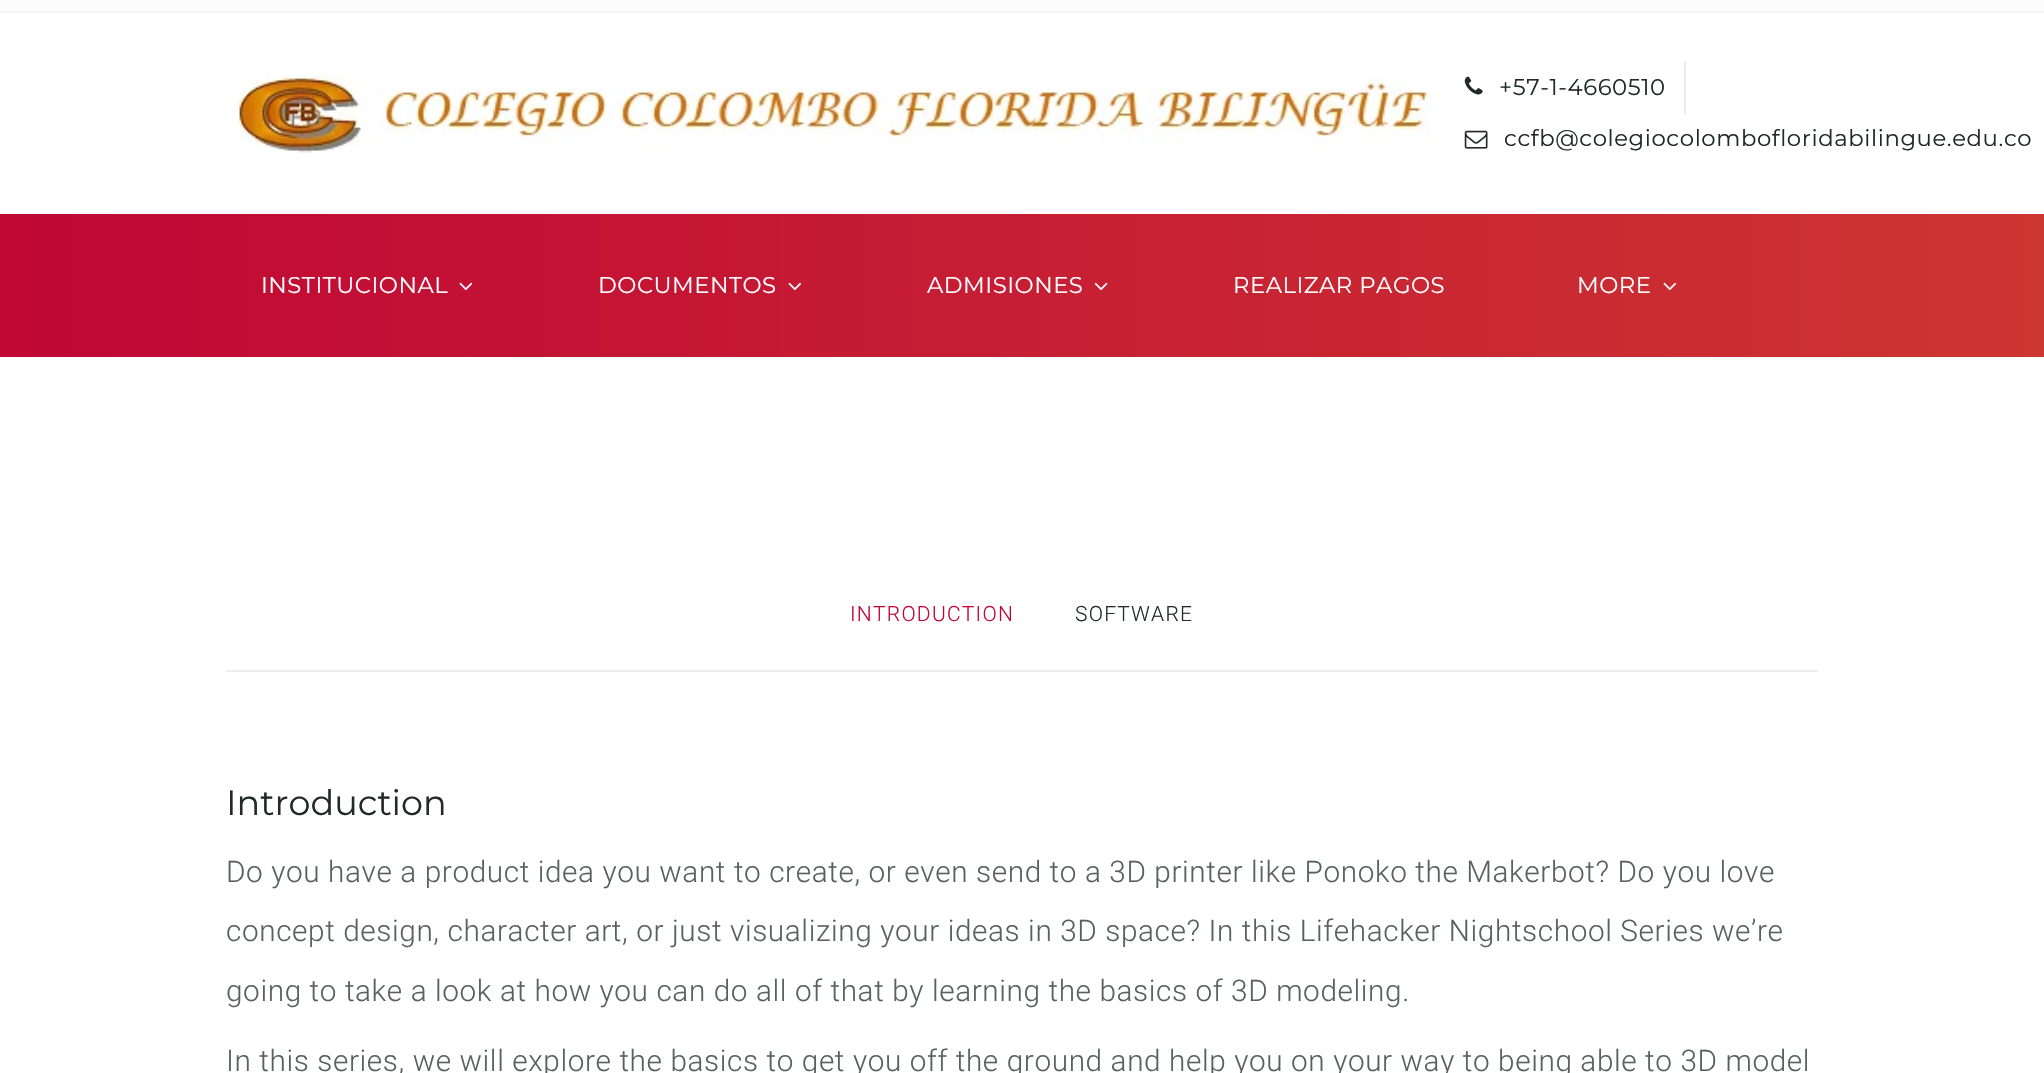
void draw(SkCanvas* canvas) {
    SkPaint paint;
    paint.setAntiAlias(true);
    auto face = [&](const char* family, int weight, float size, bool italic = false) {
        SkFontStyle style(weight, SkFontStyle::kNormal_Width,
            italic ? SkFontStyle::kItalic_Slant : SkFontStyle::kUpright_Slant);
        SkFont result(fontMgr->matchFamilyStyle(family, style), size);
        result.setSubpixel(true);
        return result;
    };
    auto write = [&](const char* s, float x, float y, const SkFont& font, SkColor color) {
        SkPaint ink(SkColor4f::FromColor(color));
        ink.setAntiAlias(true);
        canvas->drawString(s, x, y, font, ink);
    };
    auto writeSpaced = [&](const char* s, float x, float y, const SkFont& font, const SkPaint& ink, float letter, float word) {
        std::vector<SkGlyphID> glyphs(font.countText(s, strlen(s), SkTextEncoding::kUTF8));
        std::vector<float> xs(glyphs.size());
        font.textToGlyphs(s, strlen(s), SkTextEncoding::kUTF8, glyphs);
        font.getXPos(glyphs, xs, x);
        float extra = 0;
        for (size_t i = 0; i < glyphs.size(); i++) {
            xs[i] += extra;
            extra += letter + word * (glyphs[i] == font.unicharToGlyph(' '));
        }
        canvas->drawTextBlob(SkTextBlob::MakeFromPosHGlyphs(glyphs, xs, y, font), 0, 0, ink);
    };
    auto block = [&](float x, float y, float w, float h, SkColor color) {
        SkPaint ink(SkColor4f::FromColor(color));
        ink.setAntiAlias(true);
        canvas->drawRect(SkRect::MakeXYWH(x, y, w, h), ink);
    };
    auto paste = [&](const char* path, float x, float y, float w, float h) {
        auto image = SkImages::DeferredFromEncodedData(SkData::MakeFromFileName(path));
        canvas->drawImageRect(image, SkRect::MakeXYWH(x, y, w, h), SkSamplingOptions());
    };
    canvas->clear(SK_ColorWHITE);
    block(0, 0, 2044, 11, SkColorSetRGB(252, 252, 253));
    block(0, 11, 2044, 2, SkColorSetRGB(242, 242, 242));
    paste("pic1.png", 237, 75, 1193, 78);
    block(1684, 61, 2, 53, SkColorSetRGB(236, 236, 238));
    paste("pic2.png", 1464, 76, 19, 19);
    auto kFont1 = face("Montserrat", 400, 22.75f);
    paint.setColor(SkColorSetRGB(33, 41, 41));
    writeSpaced("+57-1-4660510", 1499, 95, kFont1, paint, 0.6f, 0);
    paste("pic3.png", 1464, 130, 24, 19);
    writeSpaced("ccfb@colegiocolombofloridabilingue.edu.co", 1504, 146, kFont1, paint, 0.6f, 0);
    {
        const SkColor colors[] = {SkColorSetRGB(192, 7, 54), SkColorSetRGB(205, 53, 49)};
        const float stops[] = {0, 1};
        const SkPoint ends[] = {{0, 285}, {2044, 285}};
        paint.setShader(SkGradientShader::MakeLinear(ends, colors, stops, 2, SkTileMode::kClamp));
        paint.setAlpha(255);
    }
    canvas->drawRect(SkRect::MakeXYWH(0, 214, 2044, 143), paint);
    paint.setShader(nullptr);
    paint.setColor(SK_ColorWHITE);
    writeSpaced("INSTITUCIONAL", 261, 293, kFont1, paint, 0.5f, 0);
    paste("pic4.png", 459, 282, 14, 9);
    writeSpaced("DOCUMENTOS", 598, 293, kFont1, paint, 0.5f, 0);
    paste("pic5.png", 788, 282, 14, 9);
    writeSpaced("ADMISIONES", 927, 293, kFont1, paint, 0.5f, 0);
    paste("pic6.png", 1094, 282, 14, 9);
    writeSpaced("REALIZAR PAGOS", 1233, 293, kFont1, paint, 0.5f, 0);
    writeSpaced("MORE", 1577, 293, kFont1, paint, 0.5f, 0);
    paste("pic7.png", 1663, 282, 14, 9);
    block(226, 670, 1592, 2, SkColorSetRGB(236, 236, 238));
    auto kFont2 = face("Roboto", 300, 21);
    paint.setColor(SkColorSetRGB(193, 7, 54));
    writeSpaced("INTRODUCTION", 850, 621, kFont2, paint, 1.25f, 0);
    paint.setColor(SkColorSetRGB(33, 41, 41));
    writeSpaced("SOFTWARE", 1075, 621, kFont2, paint, 1.25f, 0);
    auto kFont3 = face("Montserrat", 400, 35);
    write("Introduction", 226, 815, kFont3, SkColorSetRGB(33, 41, 41));
    auto kFont4 = face("Roboto", 300, 29.75f);
    paint.setColor(SkColorSetRGB(90, 96, 96));
    writeSpaced("Do you have a product idea you want to create, or even send to a 3D printer like Ponoko the Makerbot? Do you love", 226, 882, kFont4, paint, 0.6f, 0);
    writeSpaced("concept design, character art, or just visualizing your ideas in 3D space? In this Lifehacker Nightschool Series we’re", 226, 941, kFont4, paint, 0.6f, 0);
    writeSpaced("going to take a look at how you can do all of that by learning the basics of 3D modeling.", 226, 1001, kFont4, paint, 0.6f, 0);
    writeSpaced("In this series, we will explore the basics to get you off the ground and help you on your way to being able to 3D model", 226, 1071, kFont4, paint, 0.6f, 0);
}
